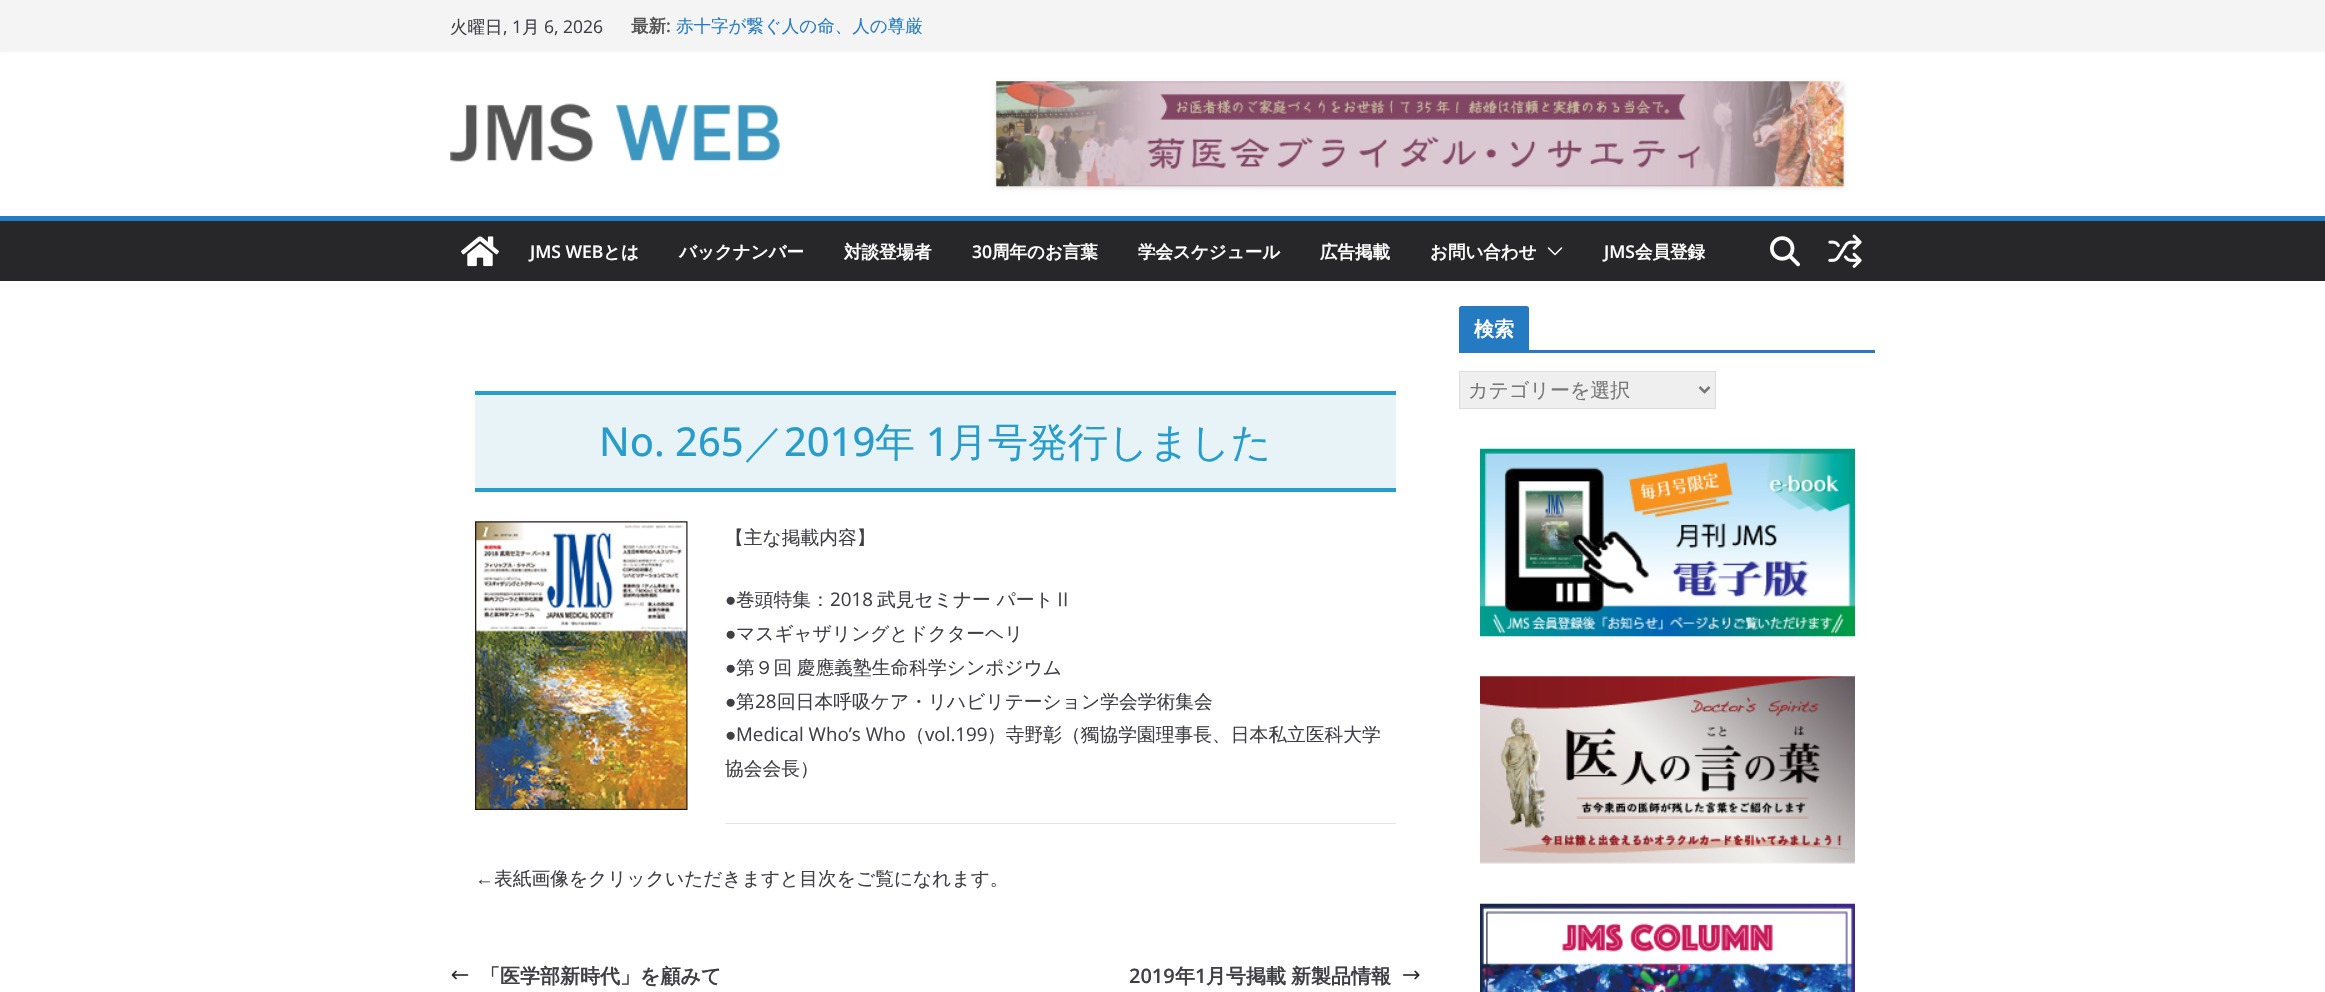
void draw(SkCanvas* canvas) {
    SkPaint paint;
    paint.setAntiAlias(true);
    auto face = [&](const char* family, int weight, float size, bool italic = false) {
        SkFontStyle style(weight, SkFontStyle::kNormal_Width,
            italic ? SkFontStyle::kItalic_Slant : SkFontStyle::kUpright_Slant);
        SkFont result(fontMgr->matchFamilyStyle(family, style), size);
        result.setSubpixel(true);
        return result;
    };
    auto write = [&](const char* s, float x, float y, const SkFont& font, SkColor color) {
        SkPaint ink(SkColor4f::FromColor(color));
        ink.setAntiAlias(true);
        canvas->drawString(s, x, y, font, ink);
    };
    auto writeSpaced = [&](const char* s, float x, float y, const SkFont& font, const SkPaint& ink, float letter, float word) {
        std::vector<SkGlyphID> glyphs(font.countText(s, strlen(s), SkTextEncoding::kUTF8));
        std::vector<float> xs(glyphs.size());
        font.textToGlyphs(s, strlen(s), SkTextEncoding::kUTF8, glyphs);
        font.getXPos(glyphs, xs, x);
        float extra = 0;
        for (size_t i = 0; i < glyphs.size(); i++) {
            xs[i] += extra;
            extra += letter + word * (glyphs[i] == font.unicharToGlyph(' '));
        }
        canvas->drawTextBlob(SkTextBlob::MakeFromPosHGlyphs(glyphs, xs, y, font), 0, 0, ink);
    };
    auto block = [&](float x, float y, float w, float h, SkColor color) {
        SkPaint ink(SkColor4f::FromColor(color));
        ink.setAntiAlias(true);
        canvas->drawRect(SkRect::MakeXYWH(x, y, w, h), ink);
    };
    auto paste = [&](const char* path, float x, float y, float w, float h) {
        auto image = SkImages::DeferredFromEncodedData(SkData::MakeFromFileName(path));
        canvas->drawImageRect(image, SkRect::MakeXYWH(x, y, w, h), SkSamplingOptions());
    };
    canvas->clear(SK_ColorWHITE);
    paint.setColor(SkColorSetARGB(26, 0, 0, 0));
    paint.setMaskFilter(SkMaskFilter::MakeBlur(kNormal_SkBlurStyle, 1));
    canvas->drawRect(SkRect::MakeXYWH(0, 0, 2325, 51), paint);
    paint.setMaskFilter(nullptr);
    block(0, 0, 2325, 51, SkColorSetRGB(244, 244, 245));
    auto kFont1 = face("WenQuanYi Zen Hei", 500, 17.5f);
    write("火曜日", 450, 33, kFont1, SkColorSetRGB(63, 63, 70));
    auto kFont2 = face("Open Sans", 400, 17.5f);
    write(", 1", 503, 33, kFont2, SkColorSetRGB(63, 63, 70));
    write("月", 522, 33, kFont1, SkColorSetRGB(63, 63, 70));
    write("6, 2026", 544, 33, kFont2, SkColorSetRGB(63, 63, 70));
    auto kFont3 = face("WenQuanYi Zen Hei", 700, 17.5f);
    write("最新", 631, 32, kFont3, SkColorSetRGB(85, 85, 85));
    auto kFont4 = face("Open Sans", 600, 17.5f);
    write(":", 666, 32, kFont4, SkColorSetRGB(85, 85, 85));
    write("赤十字が繋ぐ人の命、人の尊厳", 676, 32, kFont1, SkColorSetRGB(37, 123, 193));
    paste("pic1.png", 450, 103, 331, 59);
    paint.setMaskFilter(SkMaskFilter::MakeBlur(kNormal_SkBlurStyle, 2));
    canvas->drawRect(SkRect::MakeXYWH(996, 83, 848, 105), paint);
    paint.setMaskFilter(nullptr);
    paste("pic2.png", 996, 81, 848, 106);
    block(0, 221, 2325, 60, SkColorSetRGB(39, 39, 42));
    block(0, 216, 2325, 5, SkColorSetRGB(37, 123, 193));
    paste("pic3.png", 461, 236, 38, 31);
    write("JMS WEB", 530, 258, kFont4, SK_ColorWHITE);
    write("とは", 603, 258, kFont3, SK_ColorWHITE);
    write("バックナンバー", 679, 258, kFont3, SK_ColorWHITE);
    write("対談登場者", 844, 258, kFont3, SK_ColorWHITE);
    write("30", 972, 258, kFont4, SK_ColorWHITE);
    write("周年のお言葉", 992, 258, kFont3, SK_ColorWHITE);
    write("学会スケジュール", 1138, 258, kFont3, SK_ColorWHITE);
    write("広告掲載", 1320, 258, kFont3, SK_ColorWHITE);
    write("お問い合わせ", 1430, 258, kFont3, SK_ColorWHITE);
    paste("pic4.png", 1547, 247, 16, 9);
    write("JMS", 1604, 258, kFont4, SK_ColorWHITE);
    write("会員登録", 1635, 258, kFont3, SK_ColorWHITE);
    paste("pic5.png", 1770, 236, 30, 31);
    paste("pic6.png", 1828, 234, 34, 34);
    block(1459, 350, 416, 3, SkColorSetRGB(37, 123, 193));
    paint.setColor(SkColorSetRGB(37, 123, 193));
    canvas->drawPath(SkPathBuilder().moveTo(1461.5f, 306).lineTo(1526.5f, 306).cubicTo(1528, 306, 1529, 307, 1529, 308.5f).lineTo(1529, 350).lineTo(1459, 350).lineTo(1459, 308.5f).cubicTo(1459, 307, 1460, 306, 1461.5f, 306).close().detach(), paint);
    auto kFont5 = face("WenQuanYi Zen Hei", 700, 20);
    write("検索", 1474, 336, kFont5, SK_ColorWHITE);
    paint.setColor(SkColorSetRGB(239, 239, 239));
    canvas->drawRect(SkRect::MakeXYWH(1459.5f, 371.5f, 256, 37), paint);
    paint.setStyle(SkPaint::kStroke_Style);
    paint.setStrokeWidth(1);
    paint.setColor(SkColorSetRGB(221, 221, 221));
    canvas->drawRect(SkRect::MakeXYWH(1459.5f, 371.5f, 256, 37), paint);
    paint.setStrokeWidth(2.5f);
    paint.setColor(SkColorSetRGB(119, 119, 119));
    canvas->drawPath(SkPathBuilder().moveTo(1699.5f, 387).lineTo(1704.5f, 392).lineTo(1709.5f, 387).detach(), paint);
    auto kFont6 = face("WenQuanYi Zen Hei", 500, 20);
    write("カテゴリーを選択", 1468, 397, kFont6, SkColorSetRGB(119, 119, 119));
    paste("pic7.png", 1480, 448, 375, 189);
    paste("pic8.png", 1480, 676, 375, 188);
    paste("pic9.png", 1480, 903, 375, 89);
    block(475, 395, 921, 93, SkColorSetRGB(232, 243, 247));
    block(475, 391, 921, 4, SkColorSetRGB(40, 157, 204));
    block(475, 488, 921, 4, SkColorSetRGB(40, 157, 204));
    auto kFont7 = face("Open Sans", 500, 40);
    write("No. 265", 599, 456, kFont7, SkColorSetRGB(40, 157, 204));
    auto kFont8 = face("WenQuanYi Zen Hei", 500, 40);
    write("／", 744, 456, kFont8, SkColorSetRGB(40, 157, 204));
    write("2019", 784, 456, kFont7, SkColorSetRGB(40, 157, 204));
    write("年", 875, 456, kFont8, SkColorSetRGB(40, 157, 204));
    write("1", 926, 456, kFont7, SkColorSetRGB(40, 157, 204));
    write("月号発行しました", 948, 456, kFont8, SkColorSetRGB(40, 157, 204));
    paste("pic10.png", 475, 521, 213, 289);
    auto kFont9 = face("WenQuanYi Zen Hei", 500, 18.75f);
    write("【主な掲載内容】", 725, 544, kFont9, SkColorSetRGB(63, 63, 70));
    auto kFont10 = face("Liberation Serif", 400, 18.75f);
    write("●", 725, 606, kFont10, SkColorSetRGB(63, 63, 70));
    write("巻頭特集：", 736, 606, kFont9, SkColorSetRGB(63, 63, 70));
    auto kFont11 = face("Open Sans", 400, 18.75f);
    write("2018", 830, 606, kFont11, SkColorSetRGB(63, 63, 70));
    write("武見セミナー パートⅡ", 877, 606, kFont9, SkColorSetRGB(63, 63, 70));
    write("●", 725, 640, kFont10, SkColorSetRGB(63, 63, 70));
    write("マスギャザリングとドクターヘリ", 736, 640, kFont9, SkColorSetRGB(63, 63, 70));
    write("●", 725, 674, kFont10, SkColorSetRGB(63, 63, 70));
    paint.setStyle(SkPaint::kFill_Style);
    paint.setColor(SkColorSetRGB(63, 63, 70));
    writeSpaced("第９回 慶應義塾生命科学シンポジウム", 736, 674, kFont9, paint, 0, -1);
    write("●", 725, 708, kFont10, SkColorSetRGB(63, 63, 70));
    write("第", 736, 708, kFont9, SkColorSetRGB(63, 63, 70));
    write("28", 755, 708, kFont11, SkColorSetRGB(63, 63, 70));
    write("回日本呼吸ケア・リハビリテーション学会学術集会", 777, 708, kFont9, SkColorSetRGB(63, 63, 70));
    write("●", 725, 741, kFont10, SkColorSetRGB(63, 63, 70));
    write("Medical Who’s Who", 736, 741, kFont11, SkColorSetRGB(63, 63, 70));
    write("（", 906, 741, kFont9, SkColorSetRGB(63, 63, 70));
    write("vol.199", 925, 741, kFont11, SkColorSetRGB(63, 63, 70));
    write("）寺野彰（獨協学園理事長、日本私立医科大学", 987, 741, kFont9, SkColorSetRGB(63, 63, 70));
    write("協会会長）", 725, 775, kFont9, SkColorSetRGB(63, 63, 70));
    block(725, 823, 671, 1, SkColorSetRGB(228, 228, 231));
    write("←", 475, 885, kFont10, SkColorSetRGB(63, 63, 70));
    write("表紙画像をクリックいただきますと目次をご覧になれます。", 494, 885, kFont9, SkColorSetRGB(63, 63, 70));
    paste("pic11.png", 451, 970, 18, 10);
    write("「医学部新時代」を顧みて", 480, 983, kFont5, SkColorSetRGB(63, 63, 70));
    auto kFont12 = face("Open Sans", 600, 20);
    write("2019", 1129, 983, kFont12, SkColorSetRGB(63, 63, 70));
    write("年", 1175, 983, kFont5, SkColorSetRGB(63, 63, 70));
    write("1", 1195, 983, kFont12, SkColorSetRGB(63, 63, 70));
    writeSpaced("月号掲載 新製品情報", 1206, 983, kFont5, paint, 0, -1);
    paste("pic12.png", 1402, 970, 18, 10);
}
